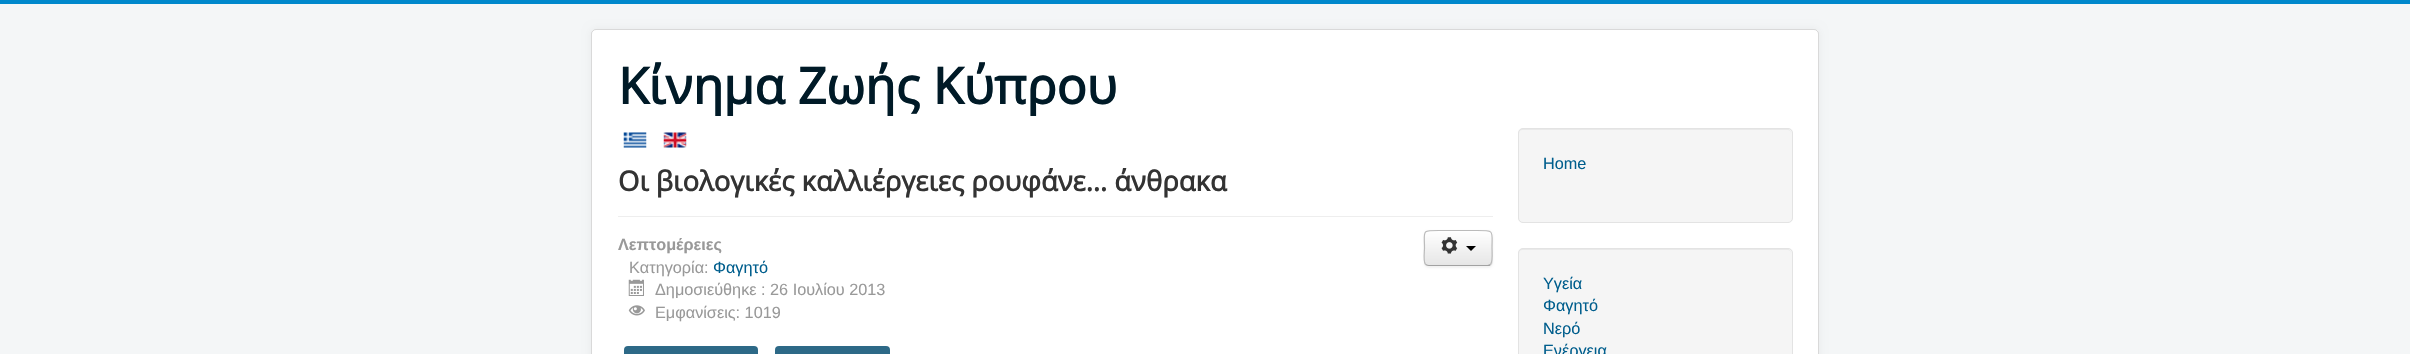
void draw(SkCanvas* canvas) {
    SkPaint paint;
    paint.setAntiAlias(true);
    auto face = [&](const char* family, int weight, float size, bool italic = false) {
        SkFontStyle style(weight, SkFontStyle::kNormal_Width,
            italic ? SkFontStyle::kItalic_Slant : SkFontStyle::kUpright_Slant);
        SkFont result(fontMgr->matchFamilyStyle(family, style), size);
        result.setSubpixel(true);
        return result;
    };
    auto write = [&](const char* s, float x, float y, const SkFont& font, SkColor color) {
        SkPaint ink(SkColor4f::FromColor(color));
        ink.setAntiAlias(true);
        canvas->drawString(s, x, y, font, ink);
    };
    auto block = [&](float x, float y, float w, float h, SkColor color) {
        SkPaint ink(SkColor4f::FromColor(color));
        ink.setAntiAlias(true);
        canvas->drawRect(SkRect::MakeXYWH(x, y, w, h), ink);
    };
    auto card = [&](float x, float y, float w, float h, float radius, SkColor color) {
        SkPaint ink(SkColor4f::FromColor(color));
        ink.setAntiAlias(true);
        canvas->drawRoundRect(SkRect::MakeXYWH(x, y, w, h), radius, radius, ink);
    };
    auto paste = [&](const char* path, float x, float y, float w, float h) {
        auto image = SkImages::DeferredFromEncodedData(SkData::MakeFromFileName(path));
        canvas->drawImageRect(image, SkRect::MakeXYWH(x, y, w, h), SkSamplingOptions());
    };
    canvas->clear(SkColorSetRGB(244, 246, 247));
    block(0, 0, 2410, 4, SkColorSetRGB(0, 136, 204));
    paint.setColor(SkColorSetARGB(13, 0, 0, 0));
    paint.setMaskFilter(SkMaskFilter::MakeBlur(kNormal_SkBlurStyle, 4));
    canvas->drawRoundRect(SkRect::MakeXYWH(591, 29, 1228, 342), 5, 5, paint);
    paint.setMaskFilter(nullptr);
    card(591, 29, 1228, 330, 5, SK_ColorWHITE);
    paint.setStyle(SkPaint::kStroke_Style);
    paint.setStrokeWidth(1);
    paint.setColor(SkColorSetARGB(38, 0, 0, 0));
    canvas->drawRoundRect(SkRect::MakeXYWH(591.5f, 29.5f, 1227, 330), 4.5f, 4.5f, paint);
    auto kFont1 = face("Open Sans", 700, 50);
    write("Κίνημα Ζωής Κύπρου", 618, 104, kFont1, SkColorSetRGB(0, 26, 39));
    paste("pic1.png", 623, 132, 24, 16);
    paste("pic2.png", 663, 132, 24, 16);
    block(618, 216, 875, 1, SkColorSetRGB(238, 238, 238));
    auto kFont2 = face("Open Sans", 700, 27.5f);
    write("Οι βιολογικές καλλιέργειες ρουφάνε… άνθρακα", 618, 191, kFont2, SkColorSetRGB(51, 51, 51));
    auto kFont3 = face("Liberation Sans", 700, 16.25f);
    write("Λεπτομέρειες", 618, 250, kFont3, SkColorSetRGB(153, 153, 153));
    auto kFont4 = face("Liberation Sans", 400, 16.25f);
    write("Κατηγορία:", 629, 273, kFont4, SkColorSetRGB(153, 153, 153));
    write("Φαγητό", 713, 273, kFont4, SkColorSetRGB(0, 94, 141));
    paste("pic3.png", 628, 279, 16, 17);
    write("Δημοσιεύθηκε : 26 Ιουλίου 2013", 655, 295, kFont4, SkColorSetRGB(153, 153, 153));
    paste("pic4.png", 628, 305, 17, 11);
    write("Εμφανίσεις: 1019", 655, 318, kFont4, SkColorSetRGB(153, 153, 153));
    paint.setStyle(SkPaint::kFill_Style);
    paint.setColor(SkColorSetARGB(13, 0, 0, 0));
    paint.setMaskFilter(SkMaskFilter::MakeBlur(kNormal_SkBlurStyle, 1));
    canvas->drawRoundRect(SkRect::MakeXYWH(1424, 231, 69, 37), 5, 5, paint);
    paint.setMaskFilter(nullptr);
    card(1424, 230, 69, 36, 5, SkColorSetRGB(245, 245, 245));
    canvas->save();
    canvas->clipPath(SkPathBuilder().moveTo(1429, 230).lineTo(1488, 230).cubicTo(1491, 230, 1493, 232, 1493, 235).lineTo(1493, 261).cubicTo(1493, 264, 1491, 266, 1488, 266).lineTo(1429, 266).cubicTo(1426, 266, 1424, 264, 1424, 261).lineTo(1424, 235).cubicTo(1424, 232, 1426, 230, 1429, 230).close().detach(), true);
    {
        const SkColor colors[] = {SK_ColorWHITE, SkColorSetRGB(230, 230, 230)};
        const float stops[] = {0, 1};
        const SkPoint ends[] = {{1458, 231}, {1458, 265}};
        paint.setShader(SkGradientShader::MakeLinear(ends, colors, stops, 2, SkTileMode::kClamp));
        paint.setAlpha(255);
    }
    canvas->drawRect(SkRect::MakeXYWH(1424, 231, 69, 34), paint);
    canvas->restore();
    paint.setShader(nullptr);
    paint.setColor(SK_ColorWHITE);
    canvas->drawPath(SkPathBuilder().moveTo(1429, 232).lineTo(1488, 232).cubicTo(1490, 232, 1491, 234, 1491, 236).cubicTo(1491, 229, 1482, 231, 1477, 231).lineTo(1439, 231).cubicTo(1434, 231, 1425, 229, 1425, 236).cubicTo(1425, 234, 1427, 232, 1429, 232).close().detach(), paint);
    paint.setStyle(SkPaint::kStroke_Style);
    paint.setStrokeWidth(1.2f);
    paint.setColor(SkColorSetRGB(162, 162, 162));
    canvas->drawPath(SkPathBuilder().moveTo(1490.5f, 264.5f).cubicTo(1490, 265, 1488.5f, 265.5f, 1487.5f, 265.5f).lineTo(1429, 265.5f).cubicTo(1427.5f, 265.5f, 1426.5f, 265, 1425.5f, 264.5f).detach(), paint);
    paint.setColor(SkColorSetRGB(187, 187, 187));
    canvas->drawPath(SkPathBuilder().moveTo(1425.5f, 264.5f).cubicTo(1423, 261.5f, 1424.5f, 251.5f, 1424.5f, 248).cubicTo(1424.5f, 230.5f, 1421, 230.5f, 1438.5f, 230.5f).lineTo(1477.5f, 230.5f).cubicTo(1495, 230.5f, 1492, 230.5f, 1492, 248).cubicTo(1492, 251.5f, 1493, 261.5f, 1490.5f, 264.5f).detach(), paint);
    paste("pic5.png", 1441, 237, 17, 17);
    paint.setStyle(SkPaint::kFill_Style);
    paint.setColor(SK_ColorBLACK);
    canvas->drawPath(SkPathBuilder().moveTo(1466, 246).lineTo(1476, 246).lineTo(1471, 251).close().detach(), paint);
    card(624, 346, 134, 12, 4, SkColorSetRGB(45, 105, 135));
    card(775, 346, 115, 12, 4, SkColorSetRGB(45, 105, 135));
    card(1518, 128, 275, 95, 5, SkColorSetRGB(245, 245, 245));
    paint.setColor(SkColorSetRGB(233, 233, 233));
    canvas->drawPath(SkPathBuilder().moveTo(1522, 130).lineTo(1788, 130).cubicTo(1790, 130, 1791, 132, 1791, 134).cubicTo(1791, 131, 1790, 129, 1787, 129).lineTo(1523, 129).cubicTo(1520, 129, 1519, 131, 1519, 134).cubicTo(1519, 132, 1520, 130, 1522, 130).close().detach(), paint);
    paint.setStyle(SkPaint::kStroke_Style);
    paint.setStrokeWidth(1);
    paint.setColor(SkColorSetRGB(227, 227, 227));
    canvas->drawRoundRect(SkRect::MakeXYWH(1518.5f, 128.5f, 274, 94), 4.5f, 4.5f, paint);
    write("Home", 1543, 169, kFont4, SkColorSetRGB(0, 94, 141));
    card(1518, 248, 275, 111, 5, SkColorSetRGB(245, 245, 245));
    paint.setStyle(SkPaint::kFill_Style);
    paint.setColor(SkColorSetRGB(233, 233, 233));
    canvas->drawPath(SkPathBuilder().moveTo(1522, 250).lineTo(1788, 250).cubicTo(1790, 250, 1791, 252, 1791, 254).cubicTo(1791, 251, 1790, 249, 1787, 249).lineTo(1523, 249).cubicTo(1520, 249, 1519, 251, 1519, 254).cubicTo(1519, 252, 1520, 250, 1522, 250).close().detach(), paint);
    paint.setStyle(SkPaint::kStroke_Style);
    paint.setColor(SkColorSetRGB(227, 227, 227));
    canvas->drawRoundRect(SkRect::MakeXYWH(1518.5f, 248.5f, 274, 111), 4.5f, 4.5f, paint);
    write("Υγεία", 1543, 289, kFont4, SkColorSetRGB(0, 94, 141));
    write("Φαγητό", 1543, 311, kFont4, SkColorSetRGB(0, 94, 141));
    write("Νερό", 1543, 334, kFont4, SkColorSetRGB(0, 94, 141));
    write("Ενέργεια", 1543, 356, kFont4, SkColorSetRGB(0, 94, 141));
}
